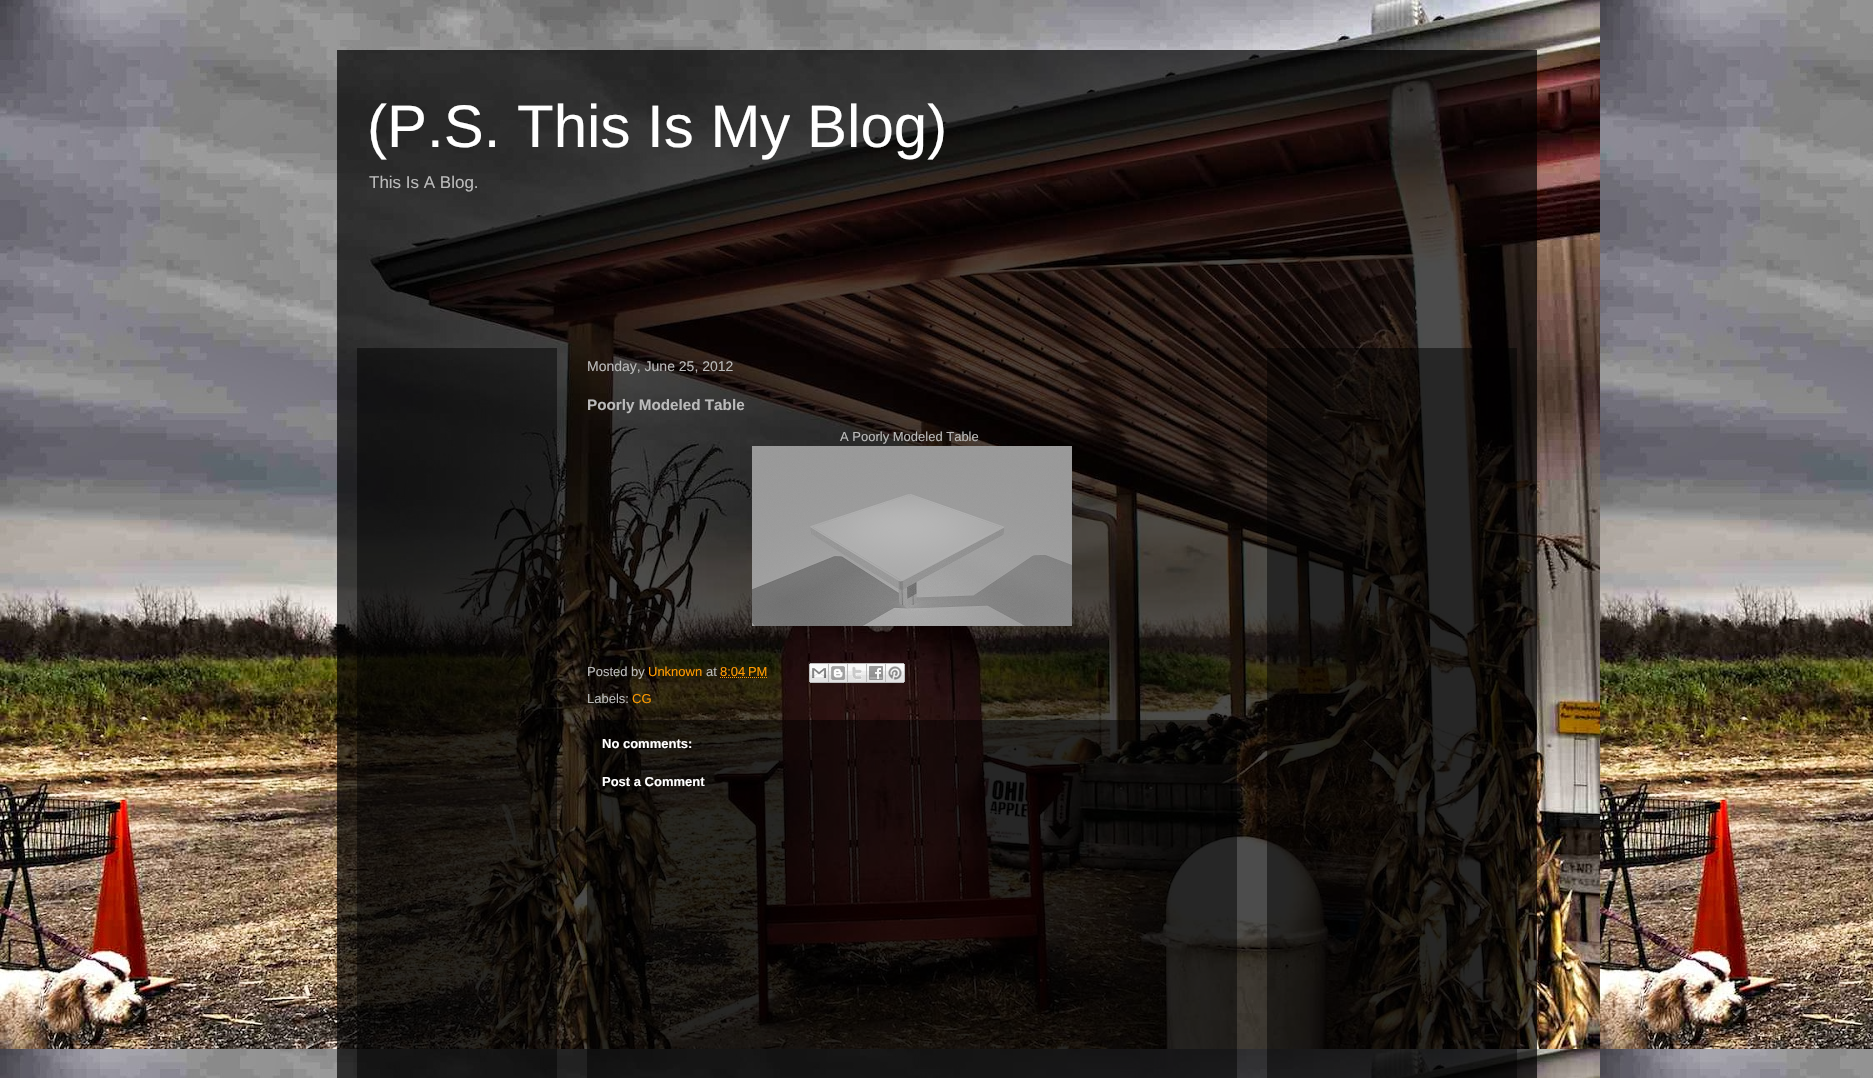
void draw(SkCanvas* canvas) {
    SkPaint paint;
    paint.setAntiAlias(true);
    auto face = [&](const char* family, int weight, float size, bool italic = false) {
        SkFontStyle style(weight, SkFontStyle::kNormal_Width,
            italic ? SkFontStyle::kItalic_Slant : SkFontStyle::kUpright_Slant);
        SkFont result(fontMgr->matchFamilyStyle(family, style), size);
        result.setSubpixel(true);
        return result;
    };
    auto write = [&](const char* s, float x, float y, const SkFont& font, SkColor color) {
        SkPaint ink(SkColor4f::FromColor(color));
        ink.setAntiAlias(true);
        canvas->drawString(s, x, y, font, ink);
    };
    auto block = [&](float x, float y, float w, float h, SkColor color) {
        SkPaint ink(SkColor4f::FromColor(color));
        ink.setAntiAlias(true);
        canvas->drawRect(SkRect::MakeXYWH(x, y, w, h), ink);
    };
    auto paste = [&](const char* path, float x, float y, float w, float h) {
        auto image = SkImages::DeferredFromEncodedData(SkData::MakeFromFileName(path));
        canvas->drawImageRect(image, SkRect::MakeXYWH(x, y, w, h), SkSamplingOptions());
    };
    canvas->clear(SK_ColorWHITE);
    paste("pic1.png", 0, 0, 1873, 1078);
    block(337, 50, 1200, 1028, SkColorSetARGB(179, 0, 0, 0));
    auto kFont1 = face("Liberation Sans", 400, 60);
    write("(P.S. This Is My Blog)", 367, 147, kFont1, SK_ColorWHITE);
    auto kFont2 = face("Liberation Sans", 400, 17);
    write("This Is A Blog.", 369, 188, kFont2, SkColorSetRGB(187, 187, 187));
    block(357, 348, 200, 730, SkColorSetARGB(128, 0, 0, 0));
    auto kFont3 = face("Liberation Sans", 400, 14);
    write("Monday, June 25, 2012", 587, 371, kFont3, SkColorSetRGB(187, 187, 187));
    auto kFont4 = face("Liberation Sans", 700, 15.25f);
    write("Poorly Modeled Table", 587, 410, kFont4, SkColorSetRGB(187, 187, 187));
    auto kFont5 = face("Liberation Sans", 400, 13);
    write("A Poorly Modeled Table", 840, 441, kFont5, SkColorSetRGB(187, 187, 187));
    paste("pic2.png", 752, 446, 320, 180);
    write("Posted by", 587, 676, kFont5, SkColorSetRGB(187, 187, 187));
    write("Unknown", 648, 676, kFont5, SkColorSetRGB(255, 153, 0));
    write("at", 706, 676, kFont5, SkColorSetRGB(187, 187, 187));
    write("8:04 PM", 720, 676, kFont5, SkColorSetRGB(255, 153, 0));
    paint.setStyle(SkPaint::kStroke_Style);
    paint.setStrokeWidth(1);
    paint.setColor(SkColorSetRGB(255, 153, 0));
    paint.setPathEffect(SkDashPathEffect::Make({{1, 1}}, 0));
    canvas->drawPath(SkPathBuilder().moveTo(720, 677.5f).lineTo(767.5f, 677.5f).detach(), paint);
    paint.setPathEffect(nullptr);
    paste("pic3.png", 809, 663, 20, 20);
    paste("pic4.png", 829, 663, 19, 20);
    paste("pic5.png", 848, 663, 19, 20);
    paste("pic6.png", 867, 663, 19, 20);
    paste("pic7.png", 886, 663, 19, 20);
    write("Labels:", 587, 703, kFont5, SkColorSetRGB(187, 187, 187));
    write("CG", 632, 703, kFont5, SkColorSetRGB(255, 153, 0));
    block(587, 720, 650, 358, SkColorSetARGB(128, 0, 0, 0));
    auto kFont6 = face("Liberation Sans", 700, 13);
    write("No comments:", 602, 748, kFont6, SK_ColorWHITE);
    write("Post a Comment", 602, 786, kFont6, SK_ColorWHITE);
    block(1267, 348, 250, 730, SkColorSetARGB(128, 0, 0, 0));
}
